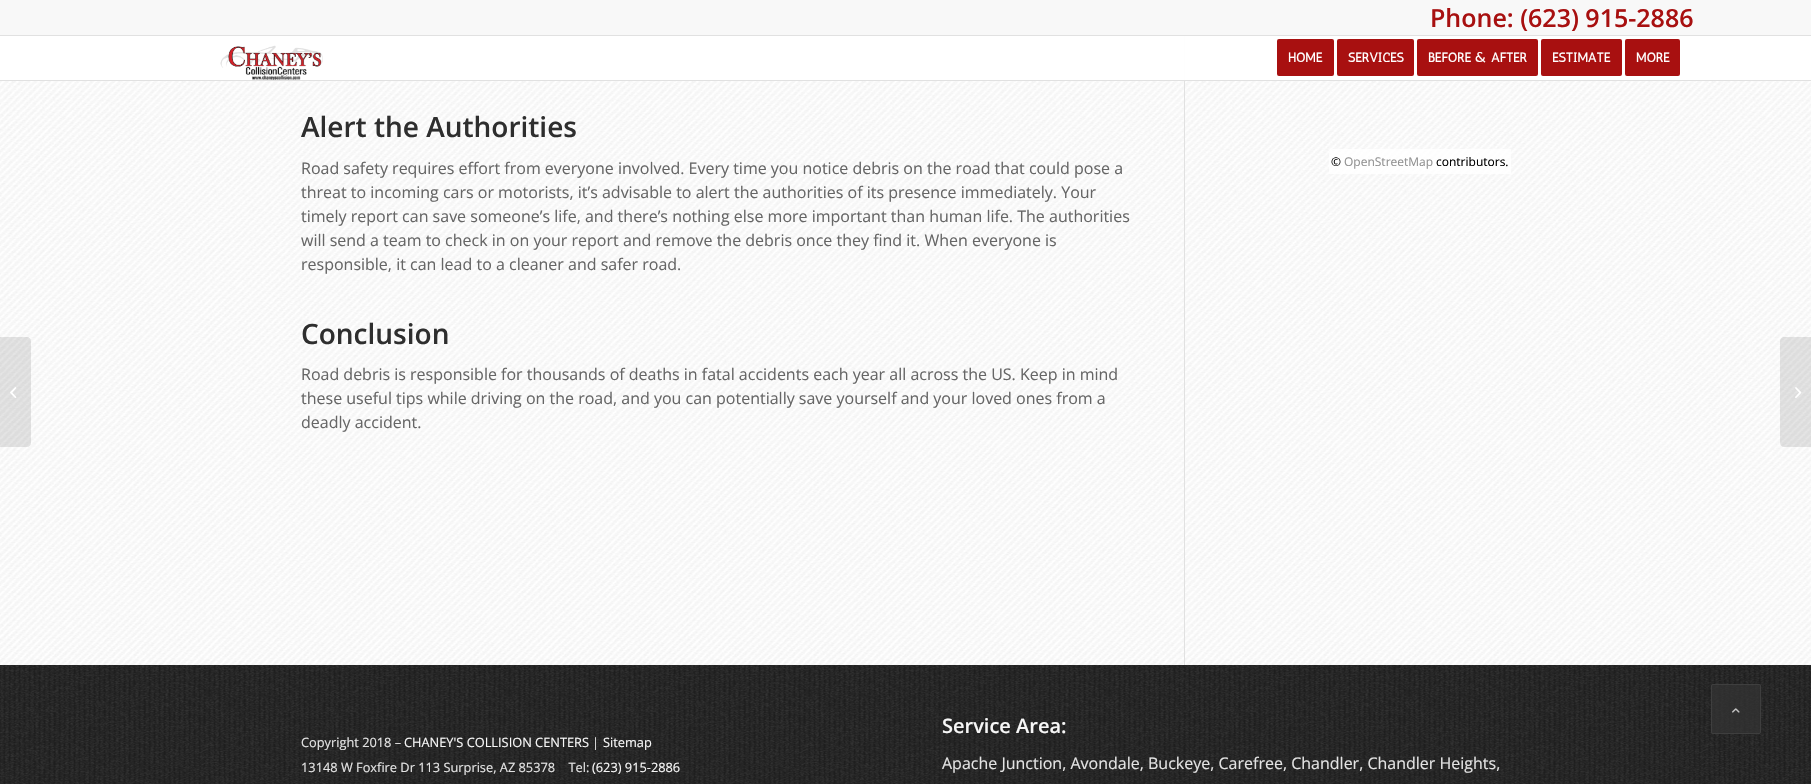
void draw(SkCanvas* canvas) {
    SkPaint paint;
    paint.setAntiAlias(true);
    auto face = [&](const char* family, int weight, float size, bool italic = false) {
        SkFontStyle style(weight, SkFontStyle::kNormal_Width,
            italic ? SkFontStyle::kItalic_Slant : SkFontStyle::kUpright_Slant);
        SkFont result(fontMgr->matchFamilyStyle(family, style), size);
        result.setSubpixel(true);
        return result;
    };
    auto write = [&](const char* s, float x, float y, const SkFont& font, SkColor color) {
        SkPaint ink(SkColor4f::FromColor(color));
        ink.setAntiAlias(true);
        canvas->drawString(s, x, y, font, ink);
    };
    auto block = [&](float x, float y, float w, float h, SkColor color) {
        SkPaint ink(SkColor4f::FromColor(color));
        ink.setAntiAlias(true);
        canvas->drawRect(SkRect::MakeXYWH(x, y, w, h), ink);
    };
    auto card = [&](float x, float y, float w, float h, float radius, SkColor color) {
        SkPaint ink(SkColor4f::FromColor(color));
        ink.setAntiAlias(true);
        canvas->drawRoundRect(SkRect::MakeXYWH(x, y, w, h), radius, radius, ink);
    };
    auto paste = [&](const char* path, float x, float y, float w, float h) {
        auto image = SkImages::DeferredFromEncodedData(SkData::MakeFromFileName(path));
        canvas->drawImageRect(image, SkRect::MakeXYWH(x, y, w, h), SkSamplingOptions());
    };
    canvas->clear(SK_ColorWHITE);
    block(0, 0, 1811, 35, SkColorSetRGB(248, 248, 248));
    block(0, 35, 1811, 1, SkColorSetRGB(225, 225, 225));
    auto kFont1 = face("Open Sans", 600, 25);
    write("Phone: (623) 915-2886", 1430, 27, kFont1, SkColorSetRGB(168, 16, 16));
    paste("pic3.png", 0, 36, 1811, 629);
    block(1184, 36, 1, 629, SkColorSetRGB(225, 225, 225));
    block(0, 36, 1811, 44, SkColorSetARGB(242, 255, 255, 255));
    block(0, 80, 1811, 1, SkColorSetRGB(225, 225, 225));
    paste("pic1.png", 220, 45, 103, 35);
    paint.setColor(SkColorSetRGB(168, 16, 16));
    canvas->drawRoundRect(SkRect::MakeXYWH(1278, 40, 55, 35), 1, 1, paint);
    paint.setStyle(SkPaint::kStroke_Style);
    paint.setStrokeWidth(2);
    canvas->drawRoundRect(SkRect::MakeXYWH(1278, 40, 55, 35), 1, 1, paint);
    auto kFont2 = face("Antic", 700, 13);
    write("HOME", 1288, 62, kFont2, SK_ColorWHITE);
    paint.setStyle(SkPaint::kFill_Style);
    canvas->drawRoundRect(SkRect::MakeXYWH(1338, 40, 75, 35), 1, 1, paint);
    paint.setStyle(SkPaint::kStroke_Style);
    canvas->drawRoundRect(SkRect::MakeXYWH(1338, 40, 75, 35), 1, 1, paint);
    write("SERVICES", 1348, 62, kFont2, SK_ColorWHITE);
    paint.setStyle(SkPaint::kFill_Style);
    canvas->drawRoundRect(SkRect::MakeXYWH(1418, 40, 119, 35), 1, 1, paint);
    paint.setStyle(SkPaint::kStroke_Style);
    canvas->drawRoundRect(SkRect::MakeXYWH(1418, 40, 119, 35), 1, 1, paint);
    write("BEFORE & AFTER", 1428, 62, kFont2, SK_ColorWHITE);
    paint.setStyle(SkPaint::kFill_Style);
    canvas->drawRoundRect(SkRect::MakeXYWH(1542, 40, 79, 35), 1, 1, paint);
    paint.setStyle(SkPaint::kStroke_Style);
    canvas->drawRoundRect(SkRect::MakeXYWH(1542, 40, 79, 35), 1, 1, paint);
    write("ESTIMATE", 1552, 62, kFont2, SK_ColorWHITE);
    paint.setStyle(SkPaint::kFill_Style);
    canvas->drawRoundRect(SkRect::MakeXYWH(1626, 40, 53, 35), 1, 1, paint);
    paint.setStyle(SkPaint::kStroke_Style);
    canvas->drawRoundRect(SkRect::MakeXYWH(1626, 40, 53, 35), 1, 1, paint);
    write("MORE", 1636, 62, kFont2, SK_ColorWHITE);
    paint.setStyle(SkPaint::kFill_Style);
    paint.setColor(SkColorSetARGB(26, 0, 0, 0));
    canvas->drawPath(SkPathBuilder().moveTo(0, 337).lineTo(27, 337).cubicTo(29, 337, 31, 339, 31, 341).lineTo(31, 443).cubicTo(31, 445, 29, 447, 27, 447).lineTo(0, 447).close().detach(), paint);
    paste("pic2.png", 10, 387, 7, 11);
    auto kFont3 = face("Open Sans", 600, 28);
    write("Alert the Authorities", 301, 137, kFont3, SkColorSetRGB(46, 46, 46));
    auto kFont4 = face("Open Sans", 400, 16);
    write("Road safety requires effort from everyone involved. Every time you notice debris on the road that could pose a", 301, 174, kFont4, SkColorSetRGB(102, 102, 102));
    write("threat to incoming cars or motorists, it’s advisable to alert the authorities of its presence immediately. Your", 301, 198, kFont4, SkColorSetRGB(102, 102, 102));
    write("timely report can save someone’s life, and there’s nothing else more important than human life. The authorities", 301, 222, kFont4, SkColorSetRGB(102, 102, 102));
    write("will send a team to check in on your report and remove the debris once they find it. When everyone is", 301, 246, kFont4, SkColorSetRGB(102, 102, 102));
    write("responsible, it can lead to a cleaner and safer road.", 301, 270, kFont4, SkColorSetRGB(102, 102, 102));
    write("Conclusion", 301, 344, kFont3, SkColorSetRGB(46, 46, 46));
    write("Road debris is responsible for thousands of deaths in fatal accidents each year all across the US. Keep in mind", 301, 380, kFont4, SkColorSetRGB(102, 102, 102));
    write("these useful tips while driving on the road, and you can potentially save yourself and your loved ones from a", 301, 404, kFont4, SkColorSetRGB(102, 102, 102));
    write("deadly accident.", 301, 428, kFont4, SkColorSetRGB(102, 102, 102));
    paint.setColor(SkColorSetARGB(204, 255, 255, 255));
    canvas->drawPath(SkPathBuilder().moveTo(1333, 149).lineTo(1511, 149).lineTo(1511, 174).lineTo(1329, 174).lineTo(1329, 153).cubicTo(1329, 151, 1331, 149, 1333, 149).close().detach(), paint);
    auto kFont5 = face("Open Sans", 400, 12);
    write("©", 1331, 166, kFont5, SK_ColorBLACK);
    write("OpenStreetMap", 1344, 166, kFont5, SkColorSetRGB(145, 145, 145));
    write("contributors.", 1436, 166, kFont5, SK_ColorBLACK);
    block(0, 665, 1811, 119, SkColorSetRGB(34, 34, 34));
    paste("pic4.png", 0, 665, 1811, 119);
    auto kFont6 = face("Open Sans", 400, 12.8f);
    write("Copyright 2018 –", 301, 747, kFont6, SkColorSetRGB(227, 227, 227));
    write("CHANEY'S COLLISION CENTERS", 404, 747, kFont6, SkColorSetRGB(247, 247, 247));
    write("|", 592, 747, kFont6, SkColorSetRGB(227, 227, 227));
    write("Sitemap", 603, 747, kFont6, SkColorSetRGB(247, 247, 247));
    write("13148 W Foxfire Dr 113 Surprise, AZ 85378    Tel:", 301, 772, kFont6, SkColorSetRGB(227, 227, 227));
    write("(623) 915-2886", 592, 772, kFont6, SkColorSetRGB(247, 247, 247));
    auto kFont7 = face("Open Sans", 600, 20);
    write("Service Area:", 942, 733, kFont7, SkColorSetRGB(247, 247, 247));
    write("Apache Junction, Avondale, Buckeye, Carefree, Chandler, Chandler Heights,", 942, 769, kFont4, SkColorSetRGB(227, 227, 227));
    paint.setColor(SkColorSetARGB(26, 0, 0, 0));
    canvas->drawPath(SkPathBuilder().moveTo(1784, 337).lineTo(1811, 337).lineTo(1811, 447).lineTo(1784, 447).cubicTo(1782, 447, 1780, 445, 1780, 443).lineTo(1780, 341).cubicTo(1780, 339, 1782, 337, 1784, 337).close().detach(), paint);
    paste("pic5.png", 1795, 387, 7, 11);
    card(1711, 684, 50, 50, 2, SkColorSetARGB(179, 51, 51, 51));
    paint.setStyle(SkPaint::kStroke_Style);
    paint.setStrokeWidth(1);
    paint.setColor(SkColorSetARGB(179, 68, 68, 68));
    canvas->drawRoundRect(SkRect::MakeXYWH(1711.5f, 684.5f, 49, 49), 1.5f, 1.5f, paint);
    paste("pic6.png", 1732, 708, 8, 5);
}
